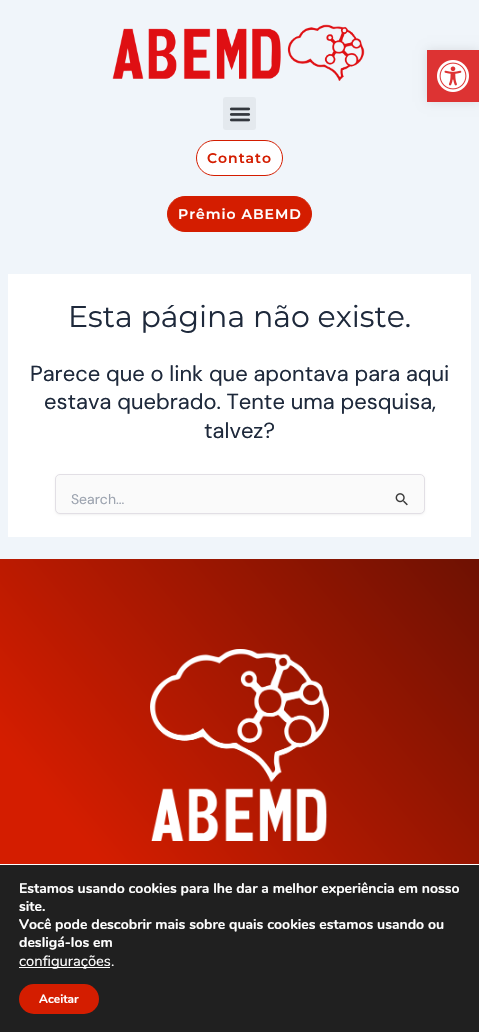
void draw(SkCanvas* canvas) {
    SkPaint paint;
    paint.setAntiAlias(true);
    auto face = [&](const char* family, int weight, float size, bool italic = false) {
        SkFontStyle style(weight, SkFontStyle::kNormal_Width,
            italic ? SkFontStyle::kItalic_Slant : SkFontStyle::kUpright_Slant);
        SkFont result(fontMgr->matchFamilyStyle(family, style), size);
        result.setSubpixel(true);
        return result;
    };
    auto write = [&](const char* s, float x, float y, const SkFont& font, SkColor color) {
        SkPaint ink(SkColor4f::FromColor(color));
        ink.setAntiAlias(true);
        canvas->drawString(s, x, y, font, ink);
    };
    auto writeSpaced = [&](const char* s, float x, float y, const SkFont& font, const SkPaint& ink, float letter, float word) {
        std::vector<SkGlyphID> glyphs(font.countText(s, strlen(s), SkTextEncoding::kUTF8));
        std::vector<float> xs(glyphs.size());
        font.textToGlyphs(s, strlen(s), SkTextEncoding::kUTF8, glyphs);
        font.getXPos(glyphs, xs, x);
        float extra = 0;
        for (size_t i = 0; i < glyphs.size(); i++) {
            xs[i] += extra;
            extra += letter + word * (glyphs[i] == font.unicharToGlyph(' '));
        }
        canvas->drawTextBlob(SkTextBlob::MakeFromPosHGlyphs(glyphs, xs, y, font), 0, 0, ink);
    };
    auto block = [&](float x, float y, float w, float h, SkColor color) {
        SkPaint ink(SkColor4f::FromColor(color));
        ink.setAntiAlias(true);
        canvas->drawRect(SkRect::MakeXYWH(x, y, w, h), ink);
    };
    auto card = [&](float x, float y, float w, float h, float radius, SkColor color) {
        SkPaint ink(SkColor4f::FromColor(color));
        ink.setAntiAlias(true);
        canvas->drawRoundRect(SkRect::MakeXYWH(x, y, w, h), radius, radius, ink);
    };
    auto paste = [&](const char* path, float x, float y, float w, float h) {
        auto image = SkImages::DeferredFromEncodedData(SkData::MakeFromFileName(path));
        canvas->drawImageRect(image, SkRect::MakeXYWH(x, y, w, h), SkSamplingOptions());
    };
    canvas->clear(SkColorSetRGB(240, 245, 250));
    paint.setColor(SkColorSetARGB(26, 0, 0, 0));
    paint.setMaskFilter(SkMaskFilter::MakeBlur(kNormal_SkBlurStyle, 5));
    canvas->drawRect(SkRect::MakeXYWH(427, 50, 52, 52), paint);
    paint.setMaskFilter(nullptr);
    block(427, 50, 52, 52, SkColorSetRGB(221, 51, 51));
    paste("pic1.png", 437, 60, 32, 32);
    paste("pic2.png", 112, 24, 253, 57);
    card(223, 97, 33, 33, 3, SkColorSetRGB(228, 233, 238));
    paste("pic3.png", 229, 107, 22, 15);
    paint.setColor(SK_ColorWHITE);
    canvas->drawRoundRect(SkRect::MakeXYWH(196.5f, 140.5f, 86, 35), 17.5f, 17.5f, paint);
    paint.setStyle(SkPaint::kStroke_Style);
    paint.setStrokeWidth(1);
    paint.setColor(SkColorSetRGB(212, 29, 0));
    canvas->drawRoundRect(SkRect::MakeXYWH(196.5f, 140.5f, 86, 35), 17.5f, 17.5f, paint);
    auto kFont1 = face("Montserrat", 600, 14);
    paint.setStyle(SkPaint::kFill_Style);
    writeSpaced("Contato", 207, 163, kFont1, paint, 1, 0);
    canvas->drawRoundRect(SkRect::MakeXYWH(167.5f, 196.5f, 144, 35), 17.5f, 17.5f, paint);
    paint.setStyle(SkPaint::kStroke_Style);
    canvas->drawRoundRect(SkRect::MakeXYWH(167.5f, 196.5f, 144, 35), 17.5f, 17.5f, paint);
    paint.setStyle(SkPaint::kFill_Style);
    paint.setColor(SK_ColorWHITE);
    writeSpaced("Prêmio ABEMD", 178, 219, kFont1, paint, 1, 0);
    block(8, 274, 463, 263, SK_ColorWHITE);
    auto kFont2 = face("Montserrat", 400, 30);
    write("Esta página não existe.", 68, 327, kFont2, SkColorSetRGB(30, 41, 59));
    auto kFont3 = face("DM Sans", 400, 21.9f);
    write("Parece que o link que apontava para aqui", 30, 381, kFont3, SkColorSetRGB(30, 41, 59));
    write("estava quebrado. Tente uma pesquisa,", 44, 409, kFont3, SkColorSetRGB(30, 41, 59));
    write("talvez?", 204, 438, kFont3, SkColorSetRGB(30, 41, 59));
    paint.setColor(SkColorSetARGB(13, 0, 0, 0));
    paint.setMaskFilter(SkMaskFilter::MakeBlur(kNormal_SkBlurStyle, 1));
    canvas->drawRoundRect(SkRect::MakeXYWH(55, 475, 370, 40), 5, 5, paint);
    paint.setMaskFilter(nullptr);
    paint.setColor(SkColorSetRGB(250, 250, 250));
    canvas->drawRoundRect(SkRect::MakeXYWH(55.5f, 474.5f, 369, 39), 4.5f, 4.5f, paint);
    paint.setStyle(SkPaint::kStroke_Style);
    paint.setColor(SkColorSetRGB(226, 223, 229));
    canvas->drawRoundRect(SkRect::MakeXYWH(55.5f, 474.5f, 369, 39), 4.5f, 4.5f, paint);
    auto kFont4 = face("DM Sans", 400, 14);
    write("Search...", 71, 504, kFont4, SkColorSetRGB(156, 163, 175));
    paste("pic4.png", 395, 493, 13, 13);
    paint.setStyle(SkPaint::kFill_Style);
    {
        const SkColor colors[] = {SkColorSetRGB(212, 29, 0), SkColorSetRGB(110, 17, 2)};
        const float stops[] = {0.51f, 1};
        const SkPoint ends[] = {{-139, 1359}, {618, 724}};
        paint.setShader(SkGradientShader::MakeLinear(ends, colors, stops, 2, SkTileMode::kClamp));
        paint.setAlpha(255);
    }
    canvas->drawRect(SkRect::MakeXYWH(0, 559, 479, 305), paint);
    paste("pic5.png", 150, 649, 179, 192);
    block(0, 865, 479, 167, SkColorSetRGB(32, 32, 32));
    block(0, 864, 479, 1, SK_ColorWHITE);
    auto kFont5 = face("Nunito", 700, 14);
    write("Estamos usando cookies para lhe dar a melhor experiência em nosso", 19, 893, kFont5, SK_ColorWHITE);
    write("site.", 19, 911, kFont5, SK_ColorWHITE);
    write("Você pode descobrir mais sobre quais cookies estamos usando ou", 19, 929, kFont5, SK_ColorWHITE);
    write("desligá-los em", 19, 947, kFont5, SK_ColorWHITE);
    block(19, 967, 91, 1, SK_ColorWHITE);
    auto kFont6 = face("Nunito", 400, 14.75f);
    write("configurações.", 19, 966, kFont6, SK_ColorWHITE);
    card(19, 984, 80, 30, 15, SkColorSetRGB(212, 29, 0));
    auto kFont7 = face("Nunito", 700, 12);
    write("Aceitar", 39, 1003, kFont7, SK_ColorWHITE);
}
